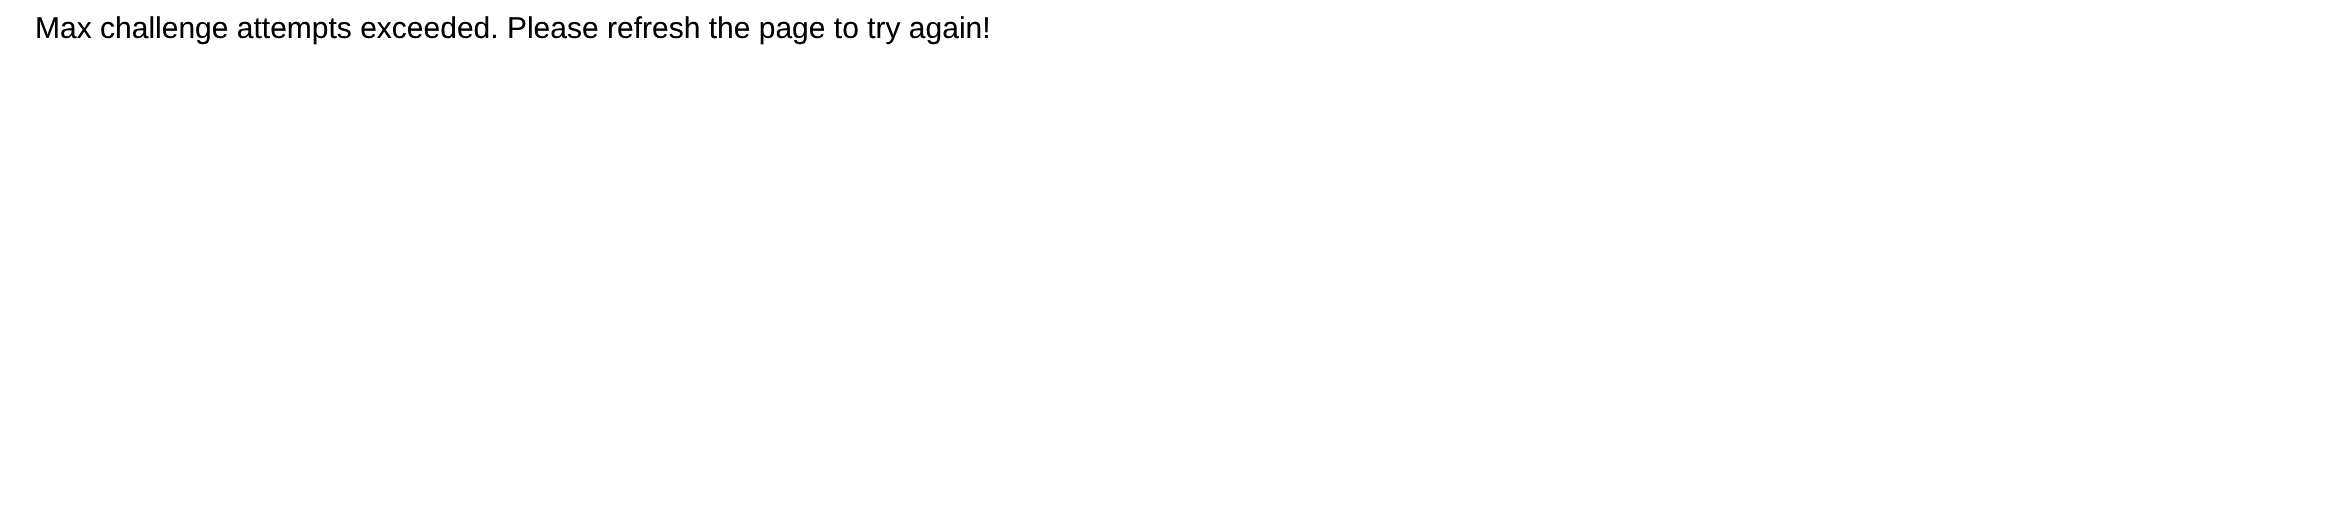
void draw(SkCanvas* canvas) {
    SkPaint paint;
    paint.setAntiAlias(true);
    auto face = [&](const char* family, int weight, float size, bool italic = false) {
        SkFontStyle style(weight, SkFontStyle::kNormal_Width,
            italic ? SkFontStyle::kItalic_Slant : SkFontStyle::kUpright_Slant);
        SkFont result(fontMgr->matchFamilyStyle(family, style), size);
        result.setSubpixel(true);
        return result;
    };
    auto write = [&](const char* s, float x, float y, const SkFont& font, SkColor color) {
        SkPaint ink(SkColor4f::FromColor(color));
        ink.setAntiAlias(true);
        canvas->drawString(s, x, y, font, ink);
    };
    canvas->clear(SK_ColorWHITE);
    auto kFont1 = face("Liberation Sans", 400, 30);
    write("Max challenge attempts exceeded. Please refresh the page to try again!", 35, 38, kFont1, SK_ColorBLACK);
}
